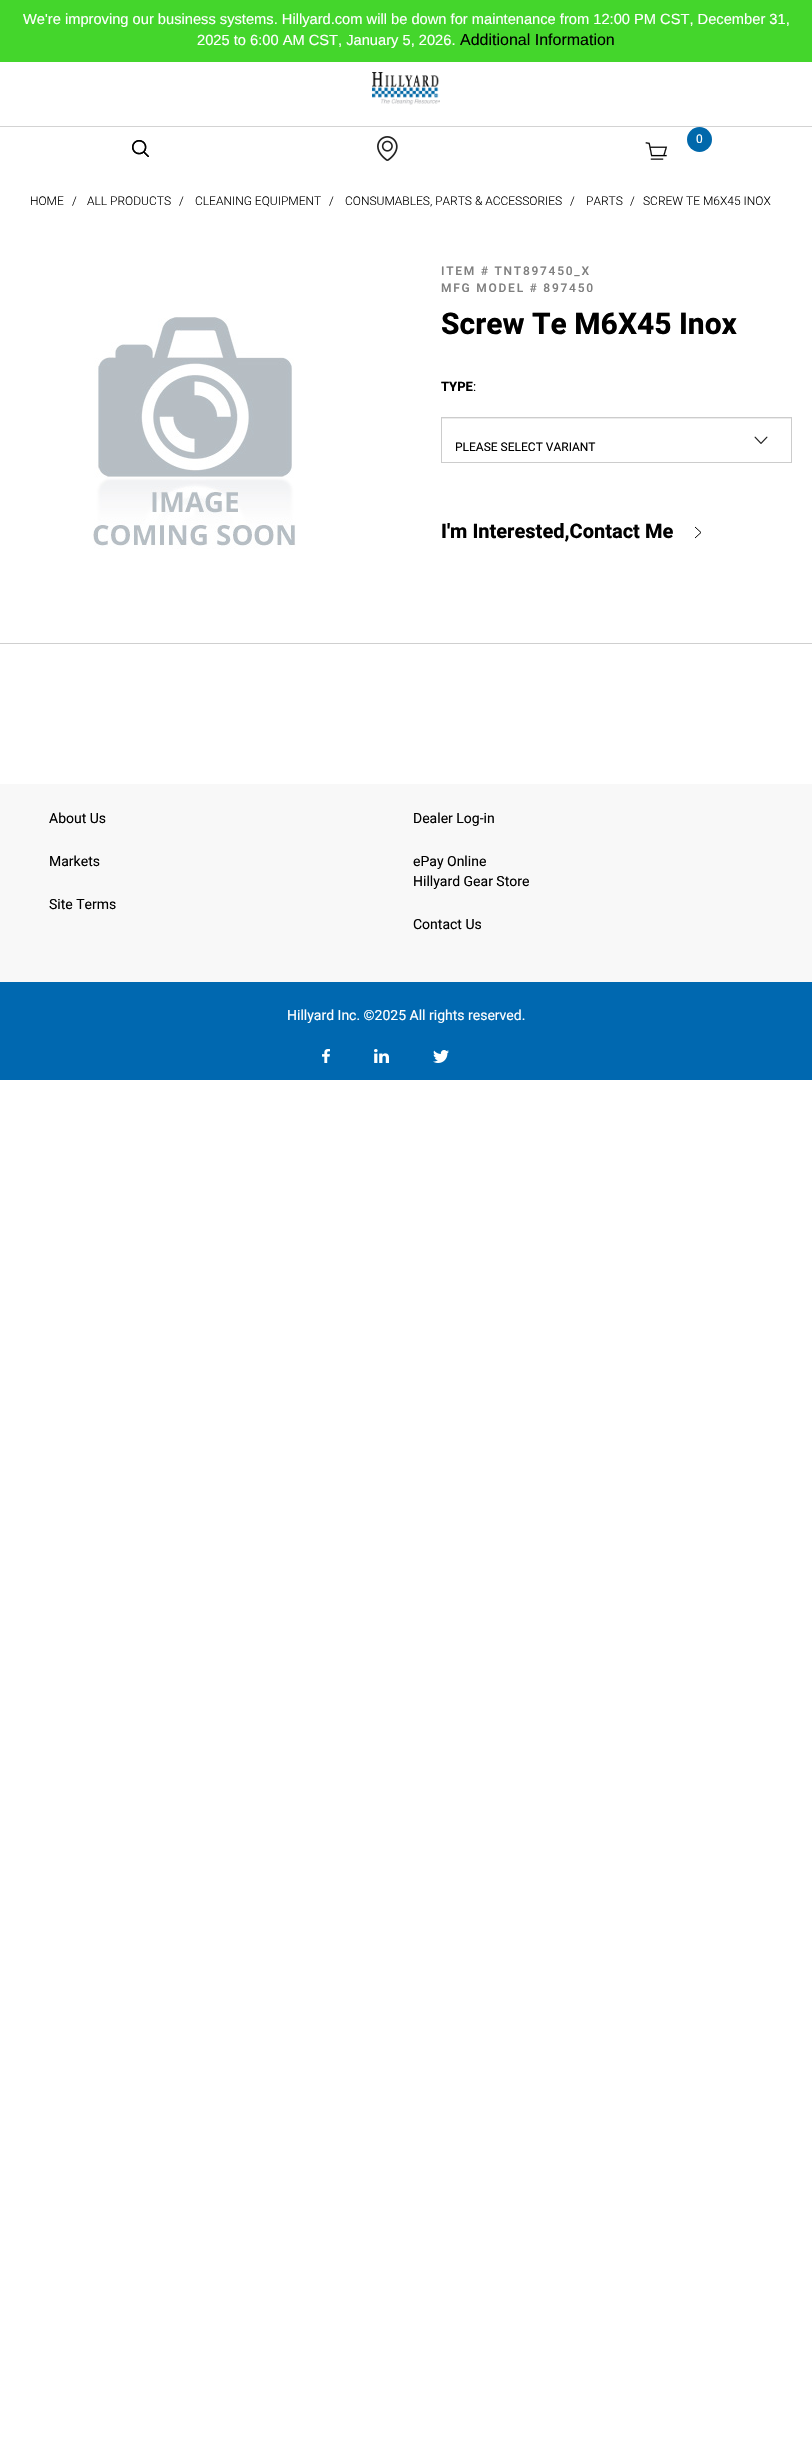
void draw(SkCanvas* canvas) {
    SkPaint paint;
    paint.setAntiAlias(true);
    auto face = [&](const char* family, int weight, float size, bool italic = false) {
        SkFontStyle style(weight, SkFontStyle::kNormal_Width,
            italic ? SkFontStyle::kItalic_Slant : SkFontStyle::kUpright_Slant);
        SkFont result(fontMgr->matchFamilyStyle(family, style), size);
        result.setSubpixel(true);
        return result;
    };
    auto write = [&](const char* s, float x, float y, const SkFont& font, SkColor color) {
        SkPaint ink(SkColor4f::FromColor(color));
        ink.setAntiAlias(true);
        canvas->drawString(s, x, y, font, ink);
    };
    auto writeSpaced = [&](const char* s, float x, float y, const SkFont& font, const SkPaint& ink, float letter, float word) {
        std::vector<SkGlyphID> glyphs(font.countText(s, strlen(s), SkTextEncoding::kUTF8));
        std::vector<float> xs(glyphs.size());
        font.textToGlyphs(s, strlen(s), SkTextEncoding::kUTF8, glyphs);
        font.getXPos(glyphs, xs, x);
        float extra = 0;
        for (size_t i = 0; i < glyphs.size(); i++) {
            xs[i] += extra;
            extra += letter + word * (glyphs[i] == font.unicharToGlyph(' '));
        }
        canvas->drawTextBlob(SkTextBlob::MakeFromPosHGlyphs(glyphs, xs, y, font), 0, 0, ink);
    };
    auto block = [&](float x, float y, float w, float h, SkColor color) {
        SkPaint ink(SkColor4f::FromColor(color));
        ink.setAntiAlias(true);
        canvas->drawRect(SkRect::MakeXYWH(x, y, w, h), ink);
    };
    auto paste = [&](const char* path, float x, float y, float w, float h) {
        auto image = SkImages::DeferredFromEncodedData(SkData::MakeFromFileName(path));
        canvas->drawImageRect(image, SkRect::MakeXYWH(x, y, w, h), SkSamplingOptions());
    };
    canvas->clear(SK_ColorWHITE);
    block(0, 0, 812, 62, SkColorSetRGB(68, 214, 44));
    auto kFont1 = face("Liberation Sans", 400, 14.67f);
    write("We're improving our business systems. Hillyard.com will be down for maintenance from 12:00 PM CST, December 31,", 23, 24, kFont1, SK_ColorWHITE);
    write("2025 to 6:00 AM CST, January 5, 2026.", 197, 45, kFont1, SK_ColorWHITE);
    auto kFont2 = face("Liberation Sans", 400, 16);
    write("Additional Information", 460, 45, kFont2, SK_ColorBLACK);
    block(0, 126, 812, 1, SkColorSetRGB(211, 211, 211));
    paste("pic1.png", 372, 72, 68, 33);
    paste("pic2.png", 132, 140, 17, 17);
    paste("pic3.png", 377, 136, 21, 25);
    paint.setColor(SkColorSetRGB(1, 104, 171));
    canvas->drawCircle(699.5f, 139.5f, 12.5f, paint);
    auto kFont3 = face("Heebo", 400, 12);
    write("0", 696, 143, kFont3, SK_ColorWHITE);
    paste("pic4.png", 645, 142, 23, 18);
    auto kFont4 = face("Heebo", 300, 12);
    write("HOME", 30, 205, kFont4, SK_ColorBLACK);
    write("/", 72, 205, kFont4, SK_ColorBLACK);
    write("ALL PRODUCTS", 87, 205, kFont4, SK_ColorBLACK);
    write("/", 179, 205, kFont4, SK_ColorBLACK);
    write("CLEANING EQUIPMENT", 195, 205, kFont4, SK_ColorBLACK);
    write("/", 329, 205, kFont4, SK_ColorBLACK);
    write("CONSUMABLES, PARTS & ACCESSORIES", 345, 205, kFont4, SK_ColorBLACK);
    write("/", 570, 205, kFont4, SK_ColorBLACK);
    write("PARTS", 586, 205, kFont4, SK_ColorBLACK);
    write("/", 630, 205, kFont4, SK_ColorBLACK);
    write("SCREW TE M6X45 INOX", 643, 205, kFont4, SK_ColorBLACK);
    paste("pic5.png", 93, 317, 203, 232);
    auto kFont5 = face("Heebo", 500, 12);
    paint.setColor(SkColorSetRGB(128, 128, 128));
    writeSpaced("ITEM # TNT897450_X", 441, 275, kFont5, paint, 1.75f, 0);
    writeSpaced("MFG MODEL # 897450", 441, 292, kFont5, paint, 1.75f, 0);
    auto kFont6 = face("Heebo", 700, 30);
    write("Screw Te M6X45 Inox", 441, 334, kFont6, SK_ColorBLACK);
    auto kFont7 = face("Heebo", 700, 13);
    write("TYPE", 441, 391, kFont7, SK_ColorBLACK);
    auto kFont8 = face("Heebo", 400, 13);
    write(":", 473, 391, kFont8, SK_ColorBLACK);
    paste("pic6.png", 754, 436, 14, 8);
    block(442, 418, 349, 1, SkColorSetRGB(236, 236, 236));
    paint.setStyle(SkPaint::kStroke_Style);
    paint.setStrokeWidth(1);
    paint.setColor(SkColorSetRGB(204, 204, 204));
    canvas->drawRect(SkRect::MakeXYWH(441.5f, 417.5f, 350, 45), paint);
    write("PLEASE SELECT VARIANT", 455, 451, kFont3, SK_ColorBLACK);
    paint.setColor(SK_ColorBLACK);
    canvas->drawPath(SkPathBuilder().moveTo(695, 538).lineTo(701, 532.5f).lineTo(695, 527).detach(), paint);
    auto kFont9 = face("Heebo", 700, 20);
    write("I'm Interested,Contact Me", 441, 538, kFont9, SK_ColorBLACK);
    block(0, 643, 812, 1, SkColorSetRGB(207, 207, 207));
    block(0, 784, 812, 198, SkColorSetRGB(248, 248, 248));
    auto kFont10 = face("Heebo", 400, 14);
    write("About Us", 49, 823, kFont10, SK_ColorBLACK);
    write("Dealer Log-in", 413, 823, kFont10, SK_ColorBLACK);
    write("Markets", 49, 866, kFont10, SK_ColorBLACK);
    write("ePay Online", 413, 866, kFont10, SK_ColorBLACK);
    write("Hillyard Gear Store", 413, 886, kFont10, SK_ColorBLACK);
    write("Site Terms", 49, 909, kFont10, SK_ColorBLACK);
    write("Contact Us", 413, 929, kFont10, SK_ColorBLACK);
    block(0, 982, 812, 98, SkColorSetRGB(0, 104, 176));
    write("Hillyard Inc. ©2025 All rights reserved.", 287, 1020, kFont10, SK_ColorWHITE);
    paste("pic7.png", 322, 1049, 8, 14);
    paste("pic8.png", 374, 1049, 15, 14);
    paste("pic9.png", 433, 1050, 16, 13);
}
